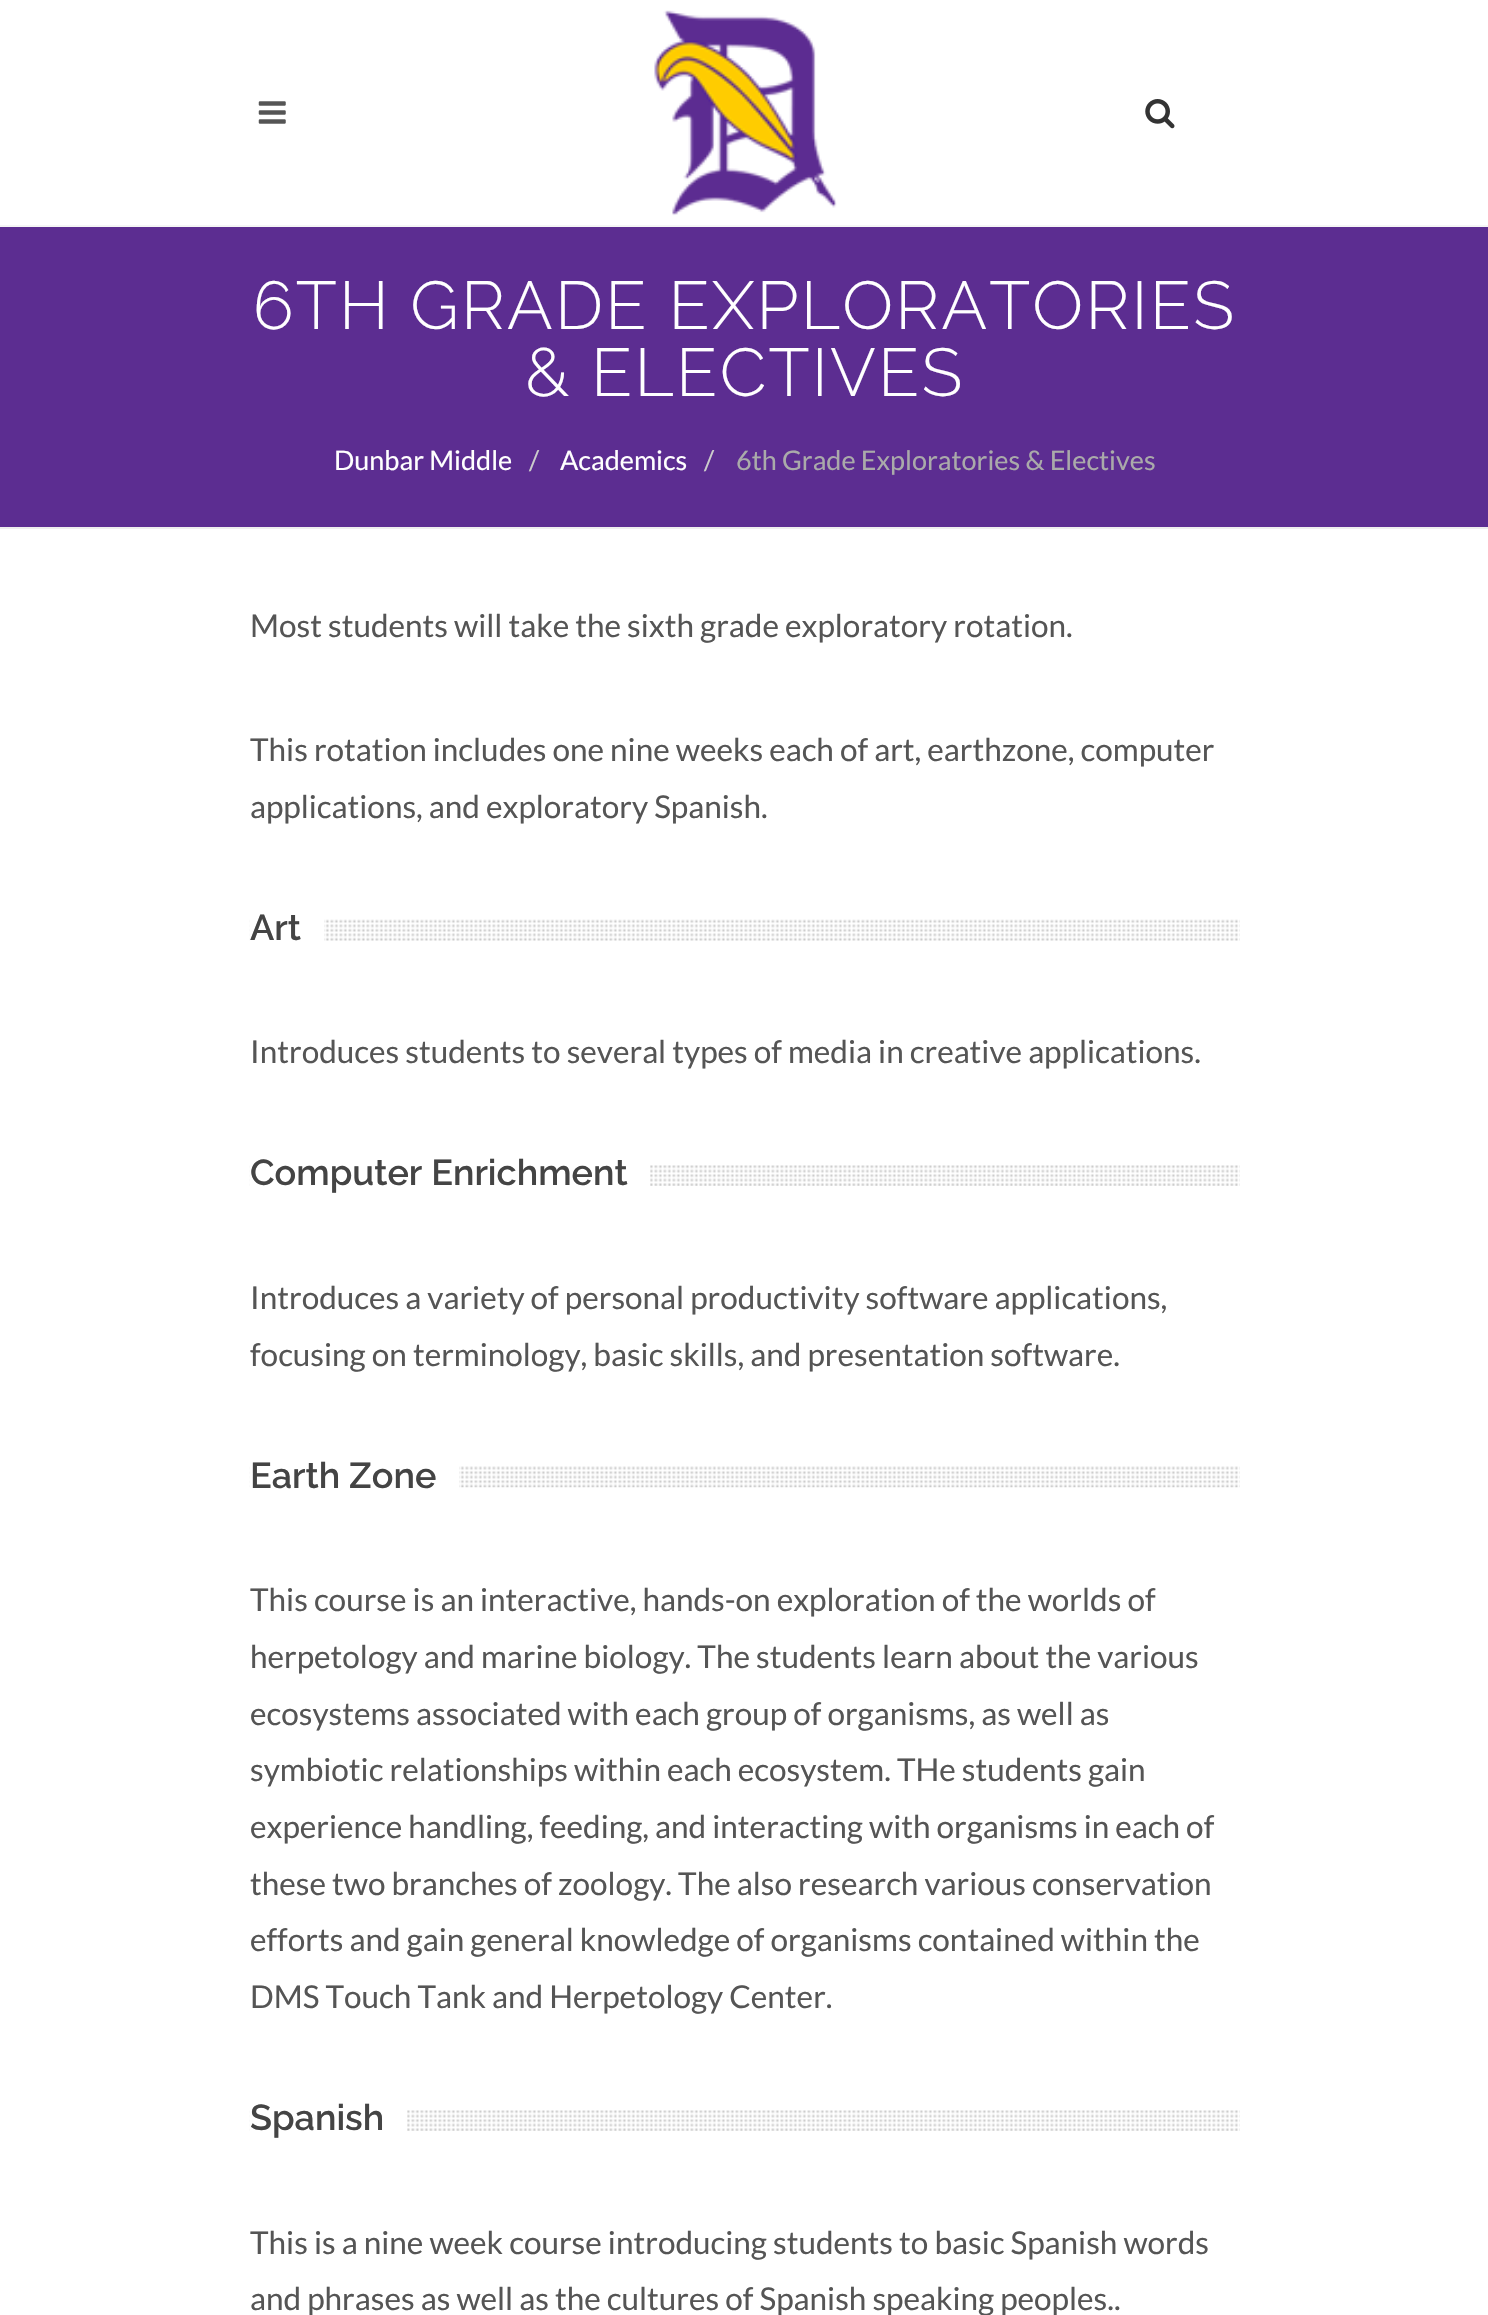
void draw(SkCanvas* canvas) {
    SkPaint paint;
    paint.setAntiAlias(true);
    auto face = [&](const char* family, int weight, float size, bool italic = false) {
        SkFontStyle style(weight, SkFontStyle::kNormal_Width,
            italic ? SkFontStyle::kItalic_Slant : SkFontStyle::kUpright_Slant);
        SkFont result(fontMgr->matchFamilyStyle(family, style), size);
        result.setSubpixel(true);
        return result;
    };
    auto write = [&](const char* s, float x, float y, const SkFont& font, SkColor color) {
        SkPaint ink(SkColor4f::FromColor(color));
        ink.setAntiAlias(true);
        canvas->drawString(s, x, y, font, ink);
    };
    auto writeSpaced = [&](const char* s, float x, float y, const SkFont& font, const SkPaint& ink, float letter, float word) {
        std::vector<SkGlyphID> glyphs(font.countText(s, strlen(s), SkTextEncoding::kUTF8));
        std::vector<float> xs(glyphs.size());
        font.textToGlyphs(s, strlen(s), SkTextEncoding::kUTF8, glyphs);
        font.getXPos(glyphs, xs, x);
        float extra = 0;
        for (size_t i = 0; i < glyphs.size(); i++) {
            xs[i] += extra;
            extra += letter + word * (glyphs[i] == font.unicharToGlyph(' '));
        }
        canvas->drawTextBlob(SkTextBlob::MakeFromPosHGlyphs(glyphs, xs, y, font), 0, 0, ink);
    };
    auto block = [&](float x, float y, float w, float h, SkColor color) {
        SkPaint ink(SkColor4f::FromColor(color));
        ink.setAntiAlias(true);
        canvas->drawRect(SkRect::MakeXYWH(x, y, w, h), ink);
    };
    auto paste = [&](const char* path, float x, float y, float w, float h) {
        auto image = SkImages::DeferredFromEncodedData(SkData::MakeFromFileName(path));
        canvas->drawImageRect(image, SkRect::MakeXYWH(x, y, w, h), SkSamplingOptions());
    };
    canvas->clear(SK_ColorWHITE);
    block(0, 225, 1488, 2, SkColorSetRGB(245, 245, 245));
    paste("pic1.png", 258, 101, 28, 23);
    paste("pic2.png", 654, 10, 183, 206);
    paste("pic3.png", 1145, 99, 30, 30);
    block(0, 227, 1488, 300, SkColorSetRGB(92, 45, 145));
    block(0, 527, 1488, 2, SkColorSetRGB(238, 238, 238));
    auto kFont1 = face("Raleway", 300, 67.5f);
    paint.setColor(SK_ColorWHITE);
    writeSpaced("6TH GRADE EXPLORATORIES", 253, 329, kFont1, paint, 2.25f, 0);
    writeSpaced("& ELECTIVES", 525, 396, kFont1, paint, 2.25f, 0);
    auto kFont2 = face("Lato", 400, 27);
    write("Dunbar Middle", 334, 470, kFont2, SK_ColorWHITE);
    write("/", 529, 470, kFont2, SkColorSetRGB(204, 204, 204));
    write("Academics", 560, 470, kFont2, SK_ColorWHITE);
    write("/", 704, 470, kFont2, SkColorSetRGB(204, 204, 204));
    write("6th Grade Exploratories & Electives", 736, 470, kFont2, SkColorSetRGB(170, 170, 170));
    auto kFont3 = face("Lato", 400, 31.5f);
    write("Most students will take the sixth grade exploratory rotation.", 250, 637, kFont3, SkColorSetRGB(85, 85, 85));
    write("This rotation includes one nine weeks each of art, earthzone, computer", 250, 761, kFont3, SkColorSetRGB(85, 85, 85));
    write("applications, and exploratory Spanish.", 250, 818, kFont3, SkColorSetRGB(85, 85, 85));
    paste("pic4.png", 249, 919, 991, 22);
    block(250, 919, 74, 22, SK_ColorWHITE);
    auto kFont4 = face("Raleway", 600, 36);
    write("Art", 250, 940, kFont4, SkColorSetRGB(68, 68, 68));
    write("Introduces students to several types of media in creative applications.", 250, 1063, kFont3, SkColorSetRGB(85, 85, 85));
    paste("pic5.png", 249, 1165, 991, 21);
    block(250, 1165, 400, 21, SK_ColorWHITE);
    write("Computer Enrichment", 250, 1185, kFont4, SkColorSetRGB(68, 68, 68));
    write("Introduces a variety of personal productivity software applications,", 250, 1309, kFont3, SkColorSetRGB(85, 85, 85));
    write("focusing on terminology, basic skills, and presentation software.", 250, 1366, kFont3, SkColorSetRGB(85, 85, 85));
    paste("pic6.png", 249, 1466, 991, 22);
    block(250, 1466, 209, 22, SK_ColorWHITE);
    write("Earth Zone", 250, 1488, kFont4, SkColorSetRGB(68, 68, 68));
    write("This course is an interactive, hands-on exploration of the worlds of", 250, 1611, kFont3, SkColorSetRGB(85, 85, 85));
    write("herpetology and marine biology. The students learn about the various", 250, 1668, kFont3, SkColorSetRGB(85, 85, 85));
    write("ecosystems associated with each group of organisms, as well as", 250, 1725, kFont3, SkColorSetRGB(85, 85, 85));
    write("symbiotic relationships within each ecosystem. THe students gain", 250, 1781, kFont3, SkColorSetRGB(85, 85, 85));
    write("experience handling, feeding, and interacting with organisms in each of", 250, 1838, kFont3, SkColorSetRGB(85, 85, 85));
    write("these two branches of zoology. The also research various conservation", 250, 1895, kFont3, SkColorSetRGB(85, 85, 85));
    write("efforts and gain general knowledge of organisms contained within the", 250, 1951, kFont3, SkColorSetRGB(85, 85, 85));
    write("DMS Touch Tank and Herpetology Center.", 250, 2008, kFont3, SkColorSetRGB(85, 85, 85));
    paste("pic5.png", 249, 2110, 991, 21);
    block(250, 2110, 157, 21, SK_ColorWHITE);
    write("Spanish", 250, 2130, kFont4, SkColorSetRGB(68, 68, 68));
    write("This is a nine week course introducing students to basic Spanish words", 250, 2254, kFont3, SkColorSetRGB(85, 85, 85));
    write("and phrases as well as the cultures of Spanish speaking peoples..", 250, 2310, kFont3, SkColorSetRGB(85, 85, 85));
}
